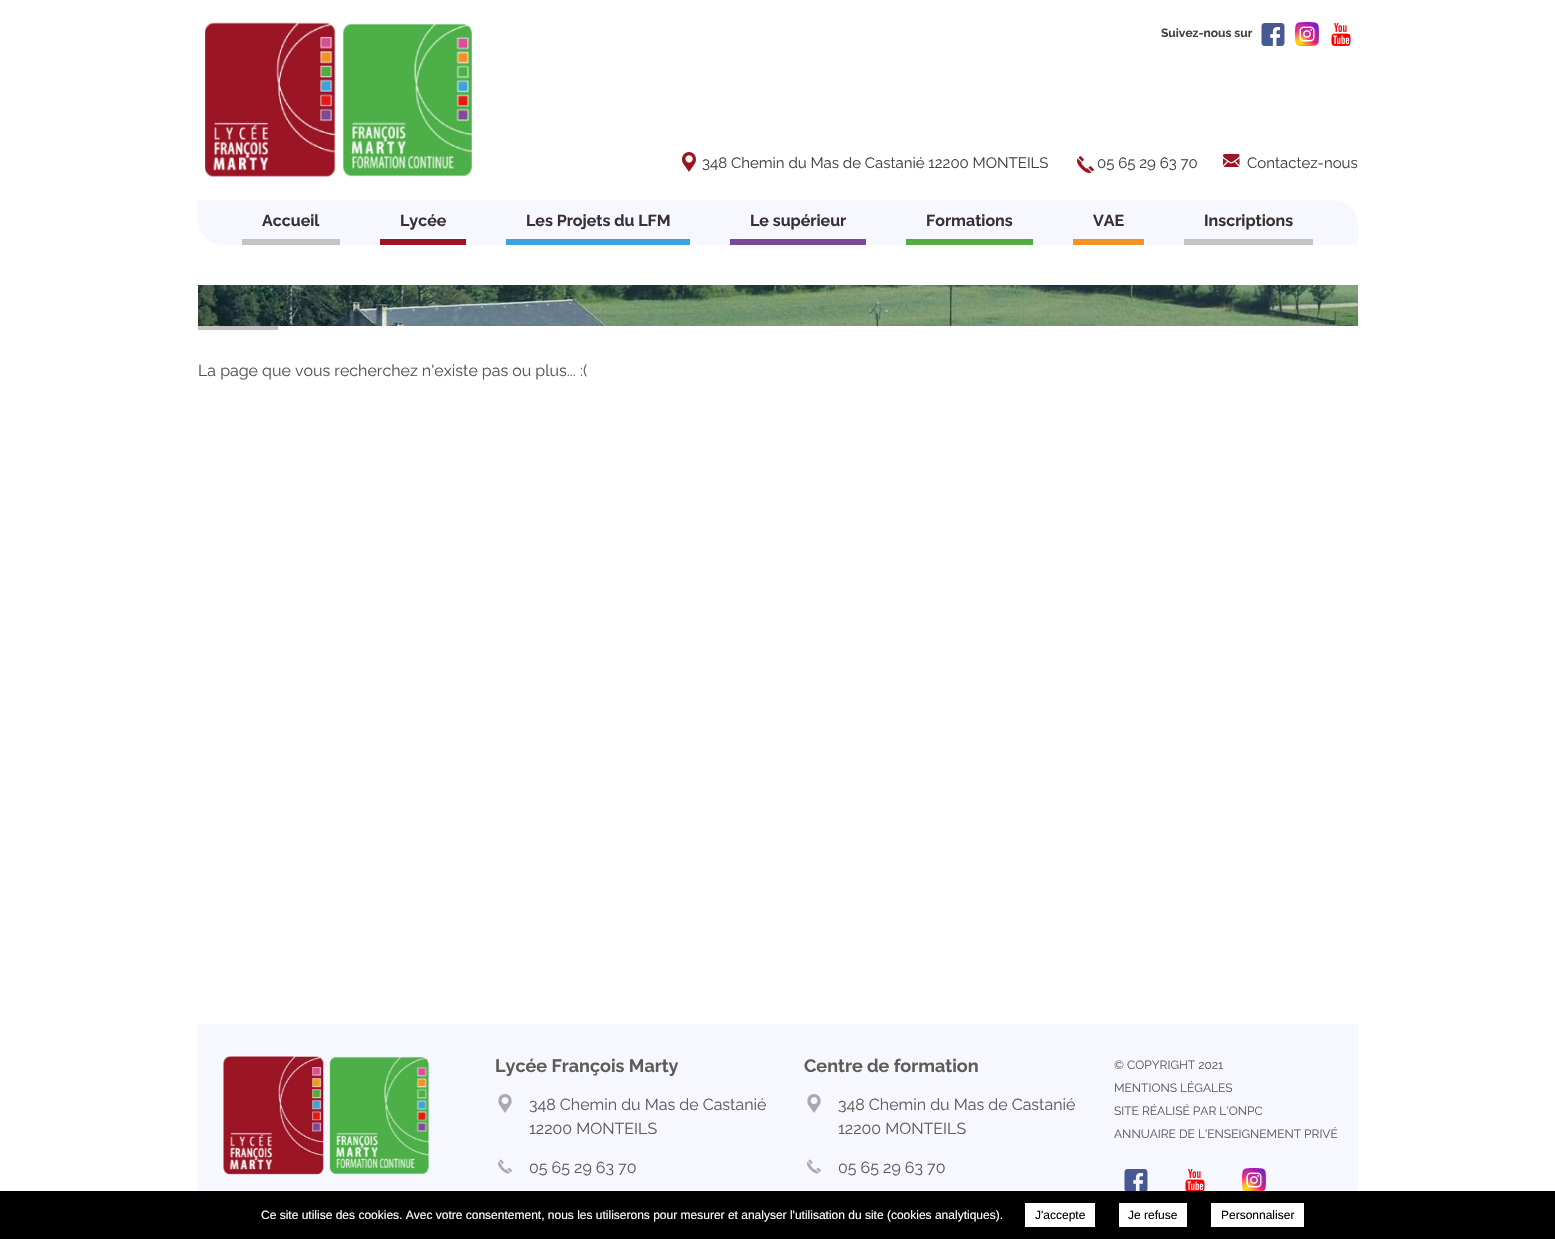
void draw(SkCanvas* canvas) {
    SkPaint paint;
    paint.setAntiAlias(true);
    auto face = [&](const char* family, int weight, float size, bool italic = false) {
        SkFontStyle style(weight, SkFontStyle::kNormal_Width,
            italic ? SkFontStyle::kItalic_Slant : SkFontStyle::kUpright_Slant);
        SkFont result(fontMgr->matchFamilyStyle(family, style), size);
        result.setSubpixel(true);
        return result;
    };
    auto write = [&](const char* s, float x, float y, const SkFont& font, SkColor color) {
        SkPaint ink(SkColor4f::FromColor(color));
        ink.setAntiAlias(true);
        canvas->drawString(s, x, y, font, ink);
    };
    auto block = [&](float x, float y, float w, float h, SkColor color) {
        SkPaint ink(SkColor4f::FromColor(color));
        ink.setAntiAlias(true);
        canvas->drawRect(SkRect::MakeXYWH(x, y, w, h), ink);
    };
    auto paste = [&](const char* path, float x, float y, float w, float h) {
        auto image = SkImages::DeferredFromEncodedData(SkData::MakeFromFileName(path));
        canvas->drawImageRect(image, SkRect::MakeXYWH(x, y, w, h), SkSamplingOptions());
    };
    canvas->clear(SK_ColorWHITE);
    paste("pic1.png", 205, 22, 267, 155);
    auto kFont1 = face("Raleway", 700, 12);
    write("Suivez-nous sur", 1161, 37, kFont1, SkColorSetRGB(65, 65, 65));
    paste("pic2.png", 1261, 23, 24, 23);
    paste("pic3.png", 1295, 22, 24, 24);
    paste("pic4.png", 1331, 23, 20, 23);
    paste("pic5.png", 682, 152, 14, 20);
    auto kFont2 = face("Raleway", 400, 15);
    write("348 Chemin du Mas de Castanié 12200 MONTEILS", 702, 168, kFont2, SkColorSetRGB(65, 65, 65));
    paste("pic6.png", 1077, 156, 17, 17);
    write("05 65 29 63 70", 1097, 168, kFont2, SkColorSetRGB(65, 65, 65));
    paste("pic7.png", 1223, 154, 17, 13);
    write("Contactez-nous", 1247, 168, kFont2, SkColorSetRGB(65, 65, 65));
    paint.setColor(SkColorSetRGB(247, 247, 255));
    canvas->drawPath(SkPathBuilder().moveTo(198, 200).lineTo(1333, 200).cubicTo(1347, 200, 1358, 211, 1358, 225).lineTo(1358, 245).lineTo(223, 245).cubicTo(209, 245, 198, 234, 198, 220).close().detach(), paint);
    block(242, 239, 98, 6, SkColorSetRGB(196, 196, 196));
    auto kFont3 = face("Raleway", 700, 16);
    write("Accueil", 262, 226, kFont3, SkColorSetRGB(56, 48, 48));
    block(380, 239, 86, 6, SkColorSetRGB(156, 21, 36));
    write("Lycée", 400, 226, kFont3, SkColorSetRGB(56, 48, 48));
    block(506, 239, 184, 6, SkColorSetRGB(60, 164, 220));
    write("Les Projets du LFM", 526, 226, kFont3, SkColorSetRGB(56, 48, 48));
    block(730, 239, 136, 6, SkColorSetRGB(122, 73, 150));
    write("Le supérieur", 750, 226, kFont3, SkColorSetRGB(56, 48, 48));
    block(906, 239, 127, 6, SkColorSetRGB(83, 173, 67));
    write("Formations", 926, 226, kFont3, SkColorSetRGB(56, 48, 48));
    block(1073, 239, 71, 6, SkColorSetRGB(244, 147, 36));
    write("VAE", 1093, 226, kFont3, SkColorSetRGB(56, 48, 48));
    block(1184, 239, 129, 6, SkColorSetRGB(196, 196, 196));
    write("Inscriptions", 1204, 226, kFont3, SkColorSetRGB(56, 48, 48));
    paste("pic8.png", 198, 285, 1160, 41);
    block(198, 326, 80, 4, SkColorSetRGB(196, 196, 196));
    auto kFont4 = face("Raleway", 400, 16);
    write("La page que vous recherchez n'existe pas ou plus... :(", 198, 376, kFont4, SkColorSetRGB(83, 83, 83));
    block(198, 1024, 1160, 167, SkColorSetRGB(247, 247, 255));
    paste("pic9.png", 223, 1056, 206, 119);
    auto kFont5 = face("Raleway", 700, 18);
    write("Lycée François Marty", 495, 1072, kFont5, SkColorSetRGB(95, 92, 88));
    paste("pic10.png", 498, 1094, 14, 19);
    write("348 Chemin du Mas de Castanié", 529, 1110, kFont4, SkColorSetRGB(95, 92, 88));
    write("12200 MONTEILS", 529, 1134, kFont4, SkColorSetRGB(95, 92, 88));
    paste("pic11.png", 498, 1159, 14, 15);
    write("05 65 29 63 70", 529, 1173, kFont4, SkColorSetRGB(95, 92, 88));
    write("Centre de formation", 804, 1072, kFont5, SkColorSetRGB(95, 92, 88));
    paste("pic10.png", 807, 1094, 14, 19);
    write("348 Chemin du Mas de Castanié", 838, 1110, kFont4, SkColorSetRGB(95, 92, 88));
    write("12200 MONTEILS", 838, 1134, kFont4, SkColorSetRGB(95, 92, 88));
    paste("pic11.png", 807, 1159, 14, 15);
    write("05 65 29 63 70", 838, 1173, kFont4, SkColorSetRGB(95, 92, 88));
    auto kFont6 = face("Raleway", 400, 12);
    write("© COPYRIGHT 2021", 1114, 1069, kFont6, SkColorSetRGB(95, 92, 88));
    write("MENTIONS LÉGALES", 1114, 1092, kFont6, SkColorSetRGB(95, 92, 88));
    write("SITE RÉALISÉ PAR L'ONPC", 1114, 1115, kFont6, SkColorSetRGB(95, 92, 88));
    write("ANNUAIRE DE L'ENSEIGNEMENT PRIVÉ", 1114, 1138, kFont6, SkColorSetRGB(95, 92, 88));
    paste("pic12.png", 1124, 1169, 24, 22);
    paste("pic13.png", 1185, 1169, 20, 22);
    paste("pic14.png", 1242, 1168, 24, 23);
    block(0, 1191, 1555, 48, SK_ColorBLACK);
    auto kFont7 = face("Liberation Sans", 400, 12);
    write("Ce site utilise des cookies. Avec votre consentement, nous les utiliserons pour mesurer et analyser l'utilisation du site (cookies analytiques).", 261, 1219, kFont7, SK_ColorWHITE);
    block(1025, 1203, 70, 24, SK_ColorWHITE);
    write("J'accepte", 1035, 1219, kFont7, SK_ColorBLACK);
    block(1119, 1203, 68, 24, SK_ColorWHITE);
    write("Je refuse", 1128, 1219, kFont7, SK_ColorBLACK);
    block(1211, 1203, 93, 24, SK_ColorWHITE);
    write("Personnaliser", 1221, 1219, kFont7, SK_ColorBLACK);
}
